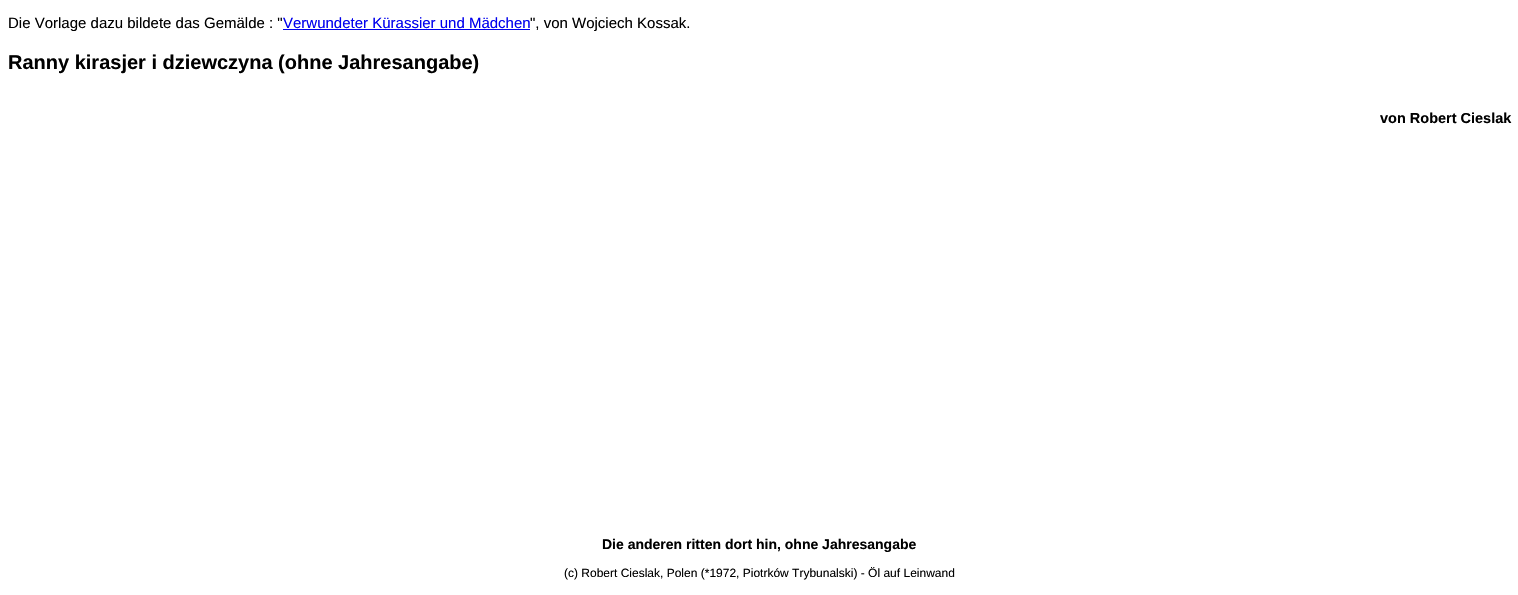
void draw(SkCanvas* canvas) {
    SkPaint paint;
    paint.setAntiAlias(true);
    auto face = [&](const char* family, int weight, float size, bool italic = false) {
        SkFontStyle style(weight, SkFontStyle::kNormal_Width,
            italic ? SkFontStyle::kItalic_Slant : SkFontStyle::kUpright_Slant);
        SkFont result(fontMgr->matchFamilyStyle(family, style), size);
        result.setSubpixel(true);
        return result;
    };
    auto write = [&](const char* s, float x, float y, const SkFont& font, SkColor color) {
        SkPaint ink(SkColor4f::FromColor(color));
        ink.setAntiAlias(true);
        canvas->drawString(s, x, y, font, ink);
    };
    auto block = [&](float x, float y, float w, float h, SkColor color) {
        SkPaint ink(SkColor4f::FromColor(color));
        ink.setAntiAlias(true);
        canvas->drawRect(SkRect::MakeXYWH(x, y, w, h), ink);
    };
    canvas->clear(SK_ColorWHITE);
    auto kFont1 = face("Liberation Sans", 400, 15);
    write("Die Vorlage dazu bildete das Gemälde : \"", 8, 28, kFont1, SK_ColorBLACK);
    write("Verwundeter Kürassier und Mädchen", 283, 28, kFont1, SkColorSetRGB(0, 0, 238));
    block(283, 29, 247, 1, SkColorSetRGB(0, 0, 238));
    write("\", von Wojciech Kossak.", 530, 28, kFont1, SK_ColorBLACK);
    auto kFont2 = face("Liberation Sans", 700, 20);
    write("Ranny kirasjer i dziewczyna (ohne Jahresangabe)", 8, 69, kFont2, SK_ColorBLACK);
    auto kFont3 = face("Liberation Sans", 700, 14.5f);
    write("von Robert Cieslak", 1380, 123, kFont3, SK_ColorBLACK);
    auto kFont4 = face("Liberation Sans", 700, 14);
    write("Die anderen ritten dort hin, ohne Jahresangabe", 602, 549, kFont4, SK_ColorBLACK);
    auto kFont5 = face("Liberation Sans", 400, 12);
    write("(c) Robert Cieslak, Polen (*1972, Piotrków Trybunalski) - Öl auf Leinwand", 564, 577, kFont5, SK_ColorBLACK);
}
